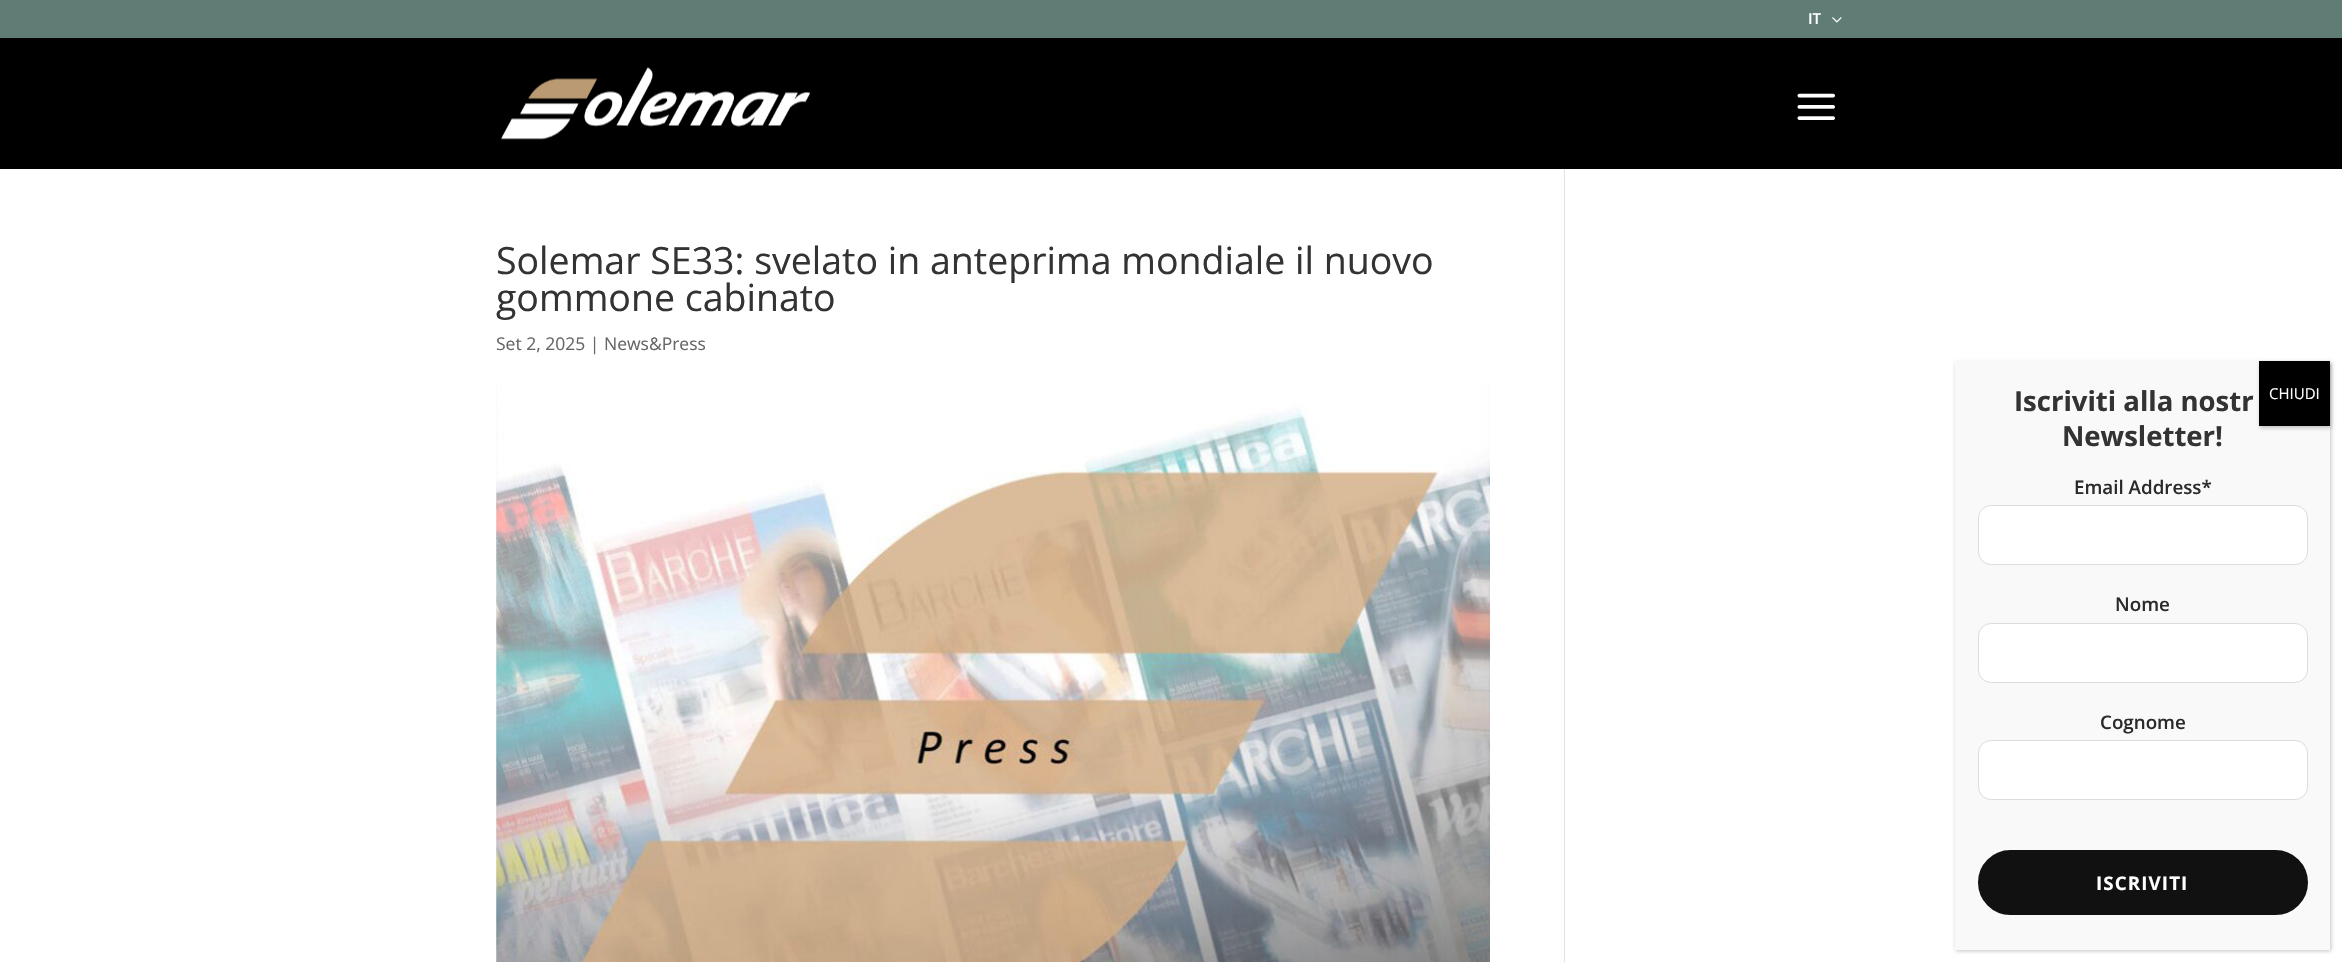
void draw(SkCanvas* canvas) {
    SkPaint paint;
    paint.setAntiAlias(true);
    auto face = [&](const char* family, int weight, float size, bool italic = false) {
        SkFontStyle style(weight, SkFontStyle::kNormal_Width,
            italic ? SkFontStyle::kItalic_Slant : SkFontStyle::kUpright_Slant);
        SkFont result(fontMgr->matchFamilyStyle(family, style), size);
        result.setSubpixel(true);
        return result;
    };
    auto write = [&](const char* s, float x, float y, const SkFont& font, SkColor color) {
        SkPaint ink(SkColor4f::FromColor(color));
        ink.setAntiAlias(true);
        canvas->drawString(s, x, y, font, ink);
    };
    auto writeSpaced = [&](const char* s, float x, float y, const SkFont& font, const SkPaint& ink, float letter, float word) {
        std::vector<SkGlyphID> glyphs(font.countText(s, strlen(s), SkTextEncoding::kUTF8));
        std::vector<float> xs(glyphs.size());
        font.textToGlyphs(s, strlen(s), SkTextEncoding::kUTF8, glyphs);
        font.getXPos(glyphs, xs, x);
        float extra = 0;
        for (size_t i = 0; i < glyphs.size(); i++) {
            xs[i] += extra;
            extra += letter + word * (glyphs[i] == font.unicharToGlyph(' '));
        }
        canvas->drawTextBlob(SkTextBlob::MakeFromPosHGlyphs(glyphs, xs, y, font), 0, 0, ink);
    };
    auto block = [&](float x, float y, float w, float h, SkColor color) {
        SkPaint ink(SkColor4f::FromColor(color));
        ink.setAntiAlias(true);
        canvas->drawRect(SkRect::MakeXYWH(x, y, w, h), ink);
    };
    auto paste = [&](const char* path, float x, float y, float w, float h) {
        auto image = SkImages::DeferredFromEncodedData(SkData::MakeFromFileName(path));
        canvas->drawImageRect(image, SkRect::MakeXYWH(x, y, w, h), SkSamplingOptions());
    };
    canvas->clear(SK_ColorBLACK);
    block(0, 0, 2342, 38, SkColorSetRGB(95, 124, 117));
    auto kFont1 = face("Open Sans", 600, 15);
    write("IT", 1808, 24, kFont1, SK_ColorWHITE);
    paste("pic1.png", 1832, 17, 10, 6);
    paste("pic2.png", 501, 67, 309, 73);
    paste("pic3.png", 1797, 93, 38, 27);
    block(0, 169, 2342, 793, SK_ColorWHITE);
    auto kFont2 = face("Open Sans", 400, 37.5f);
    write("Solemar SE33: svelato in anteprima mondiale il nuovo", 496, 274, kFont2, SkColorSetRGB(51, 51, 51));
    write("gommone cabinato", 496, 311, kFont2, SkColorSetRGB(51, 51, 51));
    auto kFont3 = face("Open Sans", 400, 17.5f);
    write("Set 2, 2025 | News&Press", 496, 350, kFont3, SkColorSetRGB(102, 102, 102));
    paste("pic4.png", 496, 385, 994, 577);
    block(1564, 169, 1, 793, SkColorSetRGB(226, 226, 226));
    paint.setColor(SkColorSetARGB(59, 2, 2, 2));
    paint.setMaskFilter(SkMaskFilter::MakeBlur(kNormal_SkBlurStyle, 2));
    canvas->drawRect(SkRect::MakeXYWH(1956, 363, 375, 588), paint);
    paint.setMaskFilter(nullptr);
    block(1955, 361, 375, 589, SkColorSetRGB(249, 249, 249));
    auto kFont4 = face("Open Sans", 700, 27.5f);
    write("Iscriviti alla nostr", 2014, 411, kFont4, SkColorSetRGB(51, 51, 51));
    write("Newsletter!", 2062, 446, kFont4, SkColorSetRGB(51, 51, 51));
    auto kFont5 = face("Open Sans", 600, 18.75f);
    write("Email Address*", 2074, 494, kFont5, SkColorSetRGB(43, 43, 43));
    paint.setColor(SK_ColorWHITE);
    canvas->drawRoundRect(SkRect::MakeXYWH(1978.5f, 505.5f, 329, 59), 12.5f, 12.5f, paint);
    paint.setStyle(SkPaint::kStroke_Style);
    paint.setStrokeWidth(1);
    paint.setColor(SkColorSetRGB(220, 220, 220));
    canvas->drawRoundRect(SkRect::MakeXYWH(1978.5f, 505.5f, 329, 59), 12.5f, 12.5f, paint);
    write("Nome", 2115, 611, kFont5, SkColorSetRGB(43, 43, 43));
    paint.setStyle(SkPaint::kFill_Style);
    paint.setColor(SK_ColorWHITE);
    canvas->drawRoundRect(SkRect::MakeXYWH(1978.5f, 623.5f, 329, 59), 12.5f, 12.5f, paint);
    paint.setStyle(SkPaint::kStroke_Style);
    paint.setColor(SkColorSetRGB(220, 220, 220));
    canvas->drawRoundRect(SkRect::MakeXYWH(1978.5f, 623.5f, 329, 59), 12.5f, 12.5f, paint);
    write("Cognome", 2100, 729, kFont5, SkColorSetRGB(43, 43, 43));
    paint.setStyle(SkPaint::kFill_Style);
    paint.setColor(SK_ColorWHITE);
    canvas->drawRoundRect(SkRect::MakeXYWH(1978.5f, 740.5f, 329, 59), 12.5f, 12.5f, paint);
    paint.setStyle(SkPaint::kStroke_Style);
    paint.setColor(SkColorSetRGB(220, 220, 220));
    canvas->drawRoundRect(SkRect::MakeXYWH(1978.5f, 740.5f, 329, 59), 12.5f, 12.5f, paint);
    paint.setStyle(SkPaint::kFill_Style);
    paint.setColor(SkColorSetRGB(17, 17, 17));
    canvas->drawRoundRect(SkRect::MakeXYWH(1979.5f, 851.5f, 327, 62), 31, 31, paint);
    paint.setStyle(SkPaint::kStroke_Style);
    paint.setStrokeWidth(3);
    canvas->drawRoundRect(SkRect::MakeXYWH(1979.5f, 851.5f, 327, 62), 31, 31, paint);
    auto kFont6 = face("Open Sans", 700, 18.75f);
    paint.setStyle(SkPaint::kFill_Style);
    paint.setColor(SK_ColorWHITE);
    writeSpaced("ISCRIVITI", 2096, 890, kFont6, paint, 1.1f, 0);
    paint.setColor(SkColorSetARGB(59, 2, 2, 2));
    paint.setMaskFilter(SkMaskFilter::MakeBlur(kNormal_SkBlurStyle, 2));
    canvas->drawRect(SkRect::MakeXYWH(2260, 363, 71, 65), paint);
    paint.setMaskFilter(nullptr);
    block(2259, 361, 71, 65, SK_ColorBLACK);
    auto kFont7 = face("Open Sans", 400, 15);
    write("CHIUDI", 2269, 399, kFont7, SK_ColorWHITE);
}
